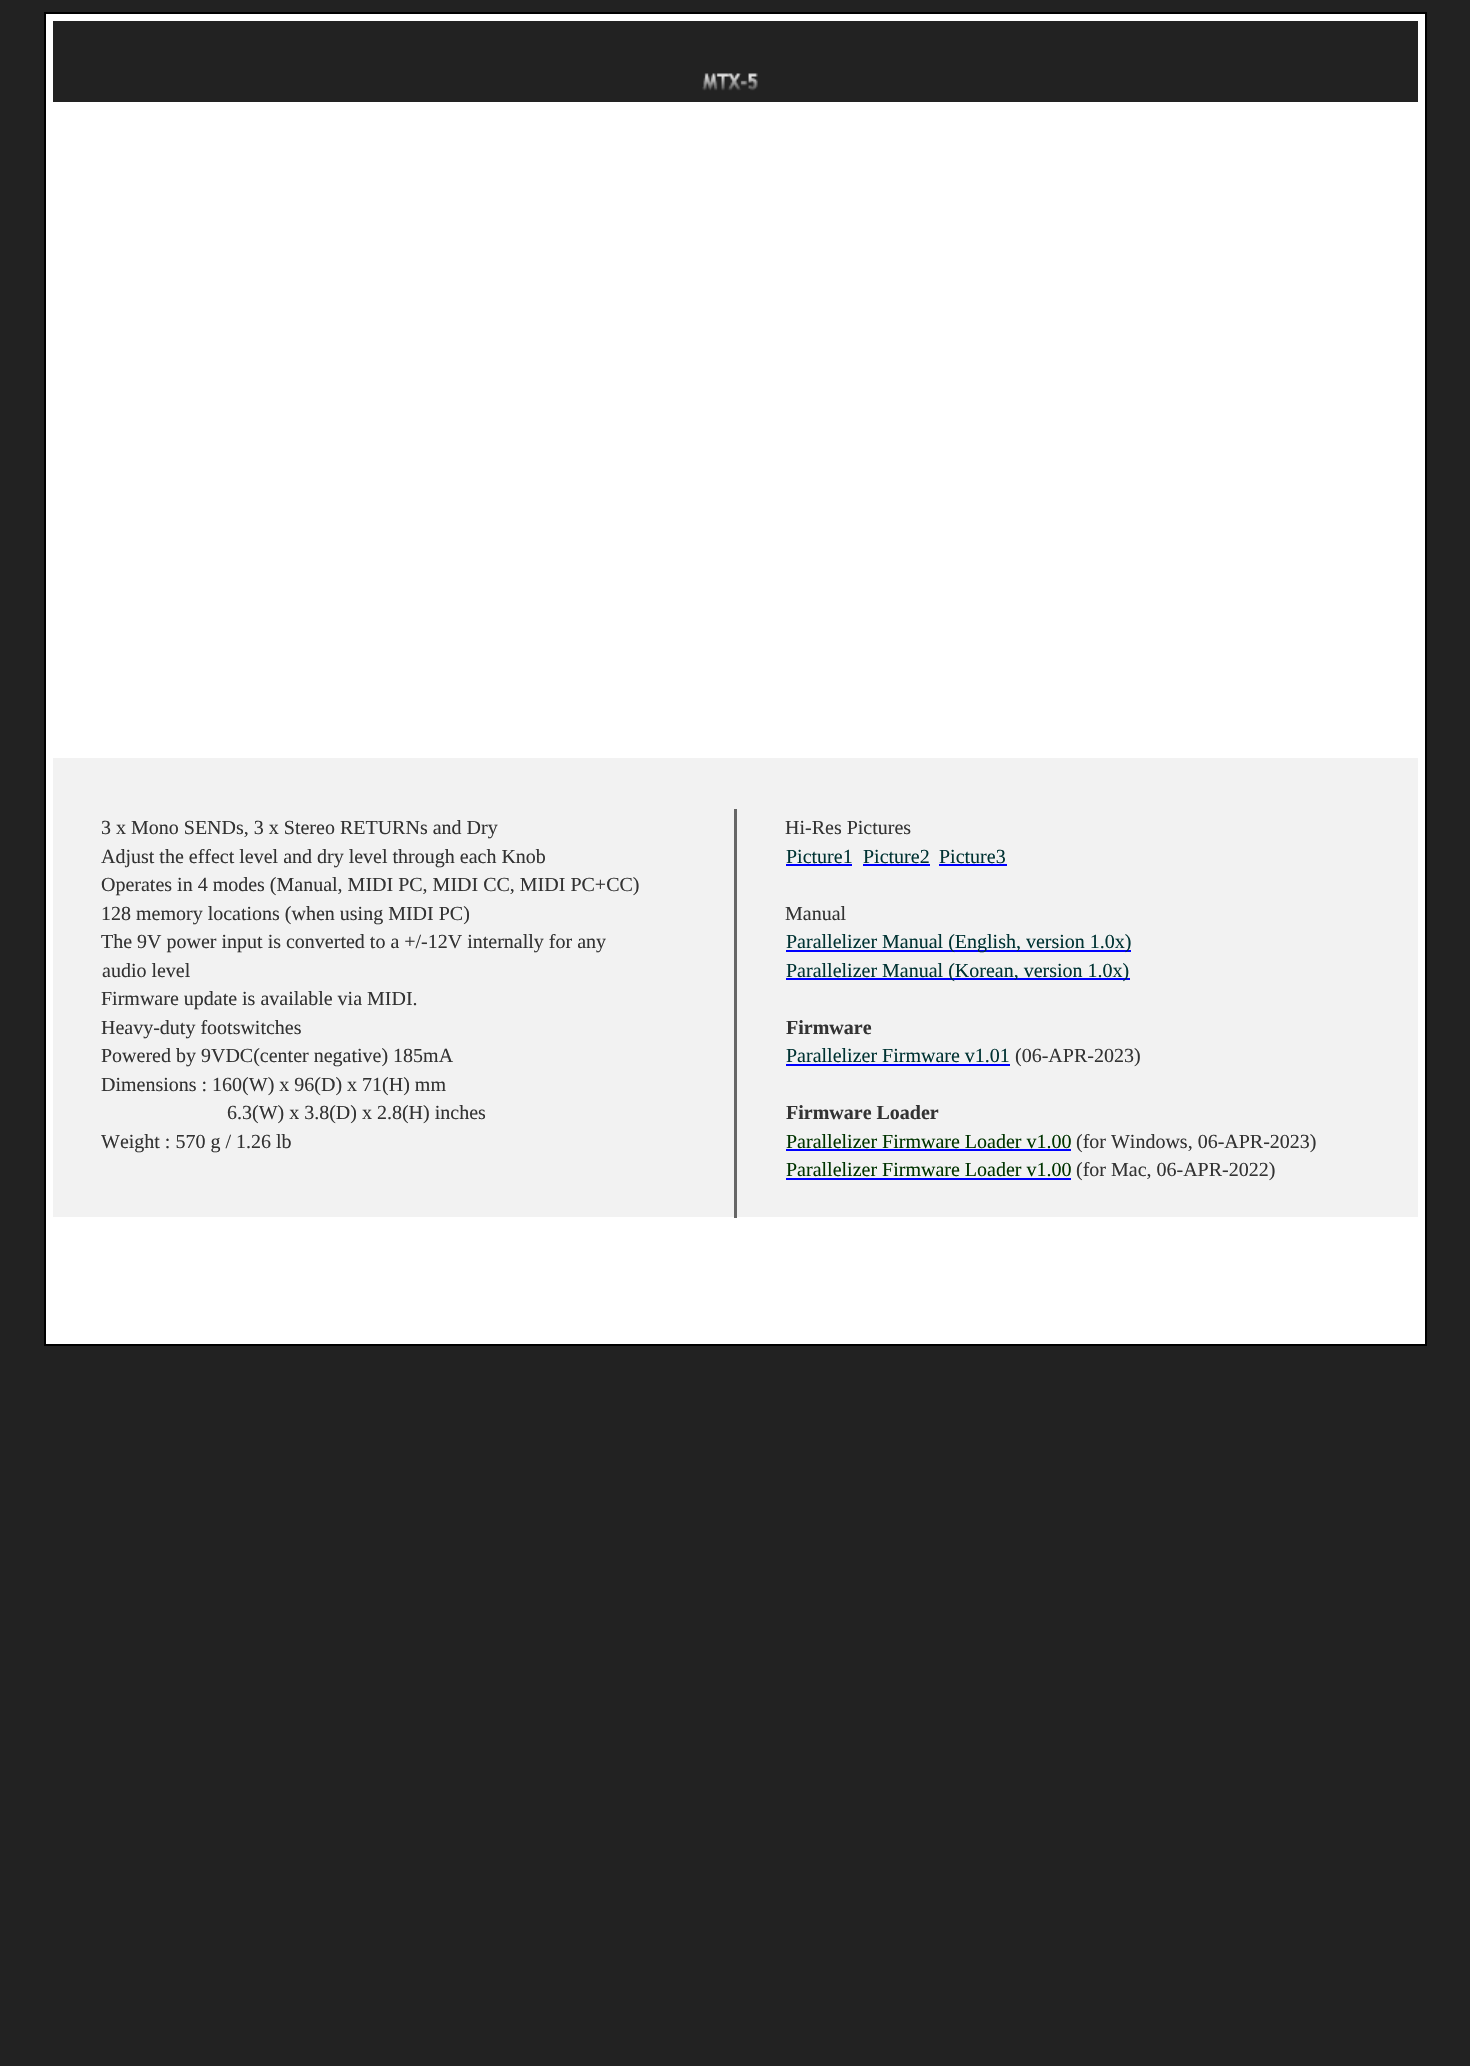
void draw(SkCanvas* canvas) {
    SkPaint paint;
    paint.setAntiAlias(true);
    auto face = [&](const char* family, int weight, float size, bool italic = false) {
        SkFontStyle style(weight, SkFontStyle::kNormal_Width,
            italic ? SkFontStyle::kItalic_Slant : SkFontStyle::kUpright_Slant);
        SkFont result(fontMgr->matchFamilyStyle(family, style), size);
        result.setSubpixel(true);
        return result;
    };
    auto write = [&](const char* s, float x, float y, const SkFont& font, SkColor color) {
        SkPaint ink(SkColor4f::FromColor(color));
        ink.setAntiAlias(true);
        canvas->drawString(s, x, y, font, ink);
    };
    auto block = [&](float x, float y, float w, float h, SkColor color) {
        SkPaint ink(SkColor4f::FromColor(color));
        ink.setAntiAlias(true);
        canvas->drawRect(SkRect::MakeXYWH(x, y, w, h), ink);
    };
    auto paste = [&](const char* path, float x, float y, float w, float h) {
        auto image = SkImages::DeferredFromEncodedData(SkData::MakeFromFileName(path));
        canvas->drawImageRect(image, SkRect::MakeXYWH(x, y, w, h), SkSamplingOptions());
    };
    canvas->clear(SkColorSetRGB(34, 34, 34));
    block(46, 14, 1379, 1330, SK_ColorWHITE);
    block(44, 12, 1383, 2, SK_ColorBLACK);
    block(1425, 12, 2, 1334, SK_ColorBLACK);
    block(44, 1344, 1383, 2, SK_ColorBLACK);
    block(44, 12, 2, 1334, SK_ColorBLACK);
    block(53, 21, 465, 81, SkColorSetRGB(34, 34, 34));
    block(518, 21, 900, 81, SkColorSetRGB(34, 34, 34));
    paste("pic1.png", 702, 73, 56, 18);
    block(53, 758, 1365, 459, SkColorSetRGB(242, 242, 242));
    auto kFont1 = face("Liberation Serif", 400, 20);
    write("3 x Mono SENDs, 3 x Stereo RETURNs and Dry", 101, 834, kFont1, SkColorSetRGB(51, 51, 51));
    write("Adjust the effect level and dry level through each Knob", 101, 863, kFont1, SkColorSetRGB(51, 51, 51));
    write("Operates in 4 modes (Manual, MIDI PC, MIDI CC, MIDI PC+CC)", 101, 891, kFont1, SkColorSetRGB(51, 51, 51));
    write("128 memory locations (when using MIDI PC)", 101, 920, kFont1, SkColorSetRGB(51, 51, 51));
    write("The 9V power input is converted to a +/-12V internally for any", 101, 948, kFont1, SkColorSetRGB(51, 51, 51));
    write("audio level", 102, 977, kFont1, SkColorSetRGB(51, 51, 51));
    write("Firmware update is available via MIDI.", 101, 1005, kFont1, SkColorSetRGB(51, 51, 51));
    write("Heavy-duty footswitches", 101, 1034, kFont1, SkColorSetRGB(51, 51, 51));
    write("Powered by 9VDC(center negative) 185mA", 101, 1062, kFont1, SkColorSetRGB(51, 51, 51));
    write("Dimensions : 160(W) x 96(D) x 71(H) mm", 101, 1091, kFont1, SkColorSetRGB(51, 51, 51));
    write("6.3(W) x 3.8(D) x 2.8(H) inches", 227, 1119, kFont1, SkColorSetRGB(51, 51, 51));
    write("Weight : 570 g / 1.26 lb", 101, 1148, kFont1, SkColorSetRGB(51, 51, 51));
    block(734, 809, 3, 409, SkColorSetRGB(102, 102, 102));
    write("Hi-Res Pictures", 785, 834, kFont1, SkColorSetRGB(51, 51, 51));
    write("Picture1", 786, 863, kFont1, SkColorSetRGB(0, 51, 51));
    block(786, 864, 66, 2, SkColorSetRGB(0, 0, 255));
    write("Picture2", 863, 863, kFont1, SkColorSetRGB(0, 51, 51));
    block(863, 864, 67, 2, SkColorSetRGB(0, 0, 255));
    write("Picture3", 939, 863, kFont1, SkColorSetRGB(0, 51, 51));
    block(939, 864, 68, 2, SkColorSetRGB(0, 0, 255));
    write("Manual", 785, 920, kFont1, SkColorSetRGB(51, 51, 51));
    block(786, 950, 345, 2, SkColorSetRGB(0, 0, 255));
    write("Parallelizer Manual (English, version 1.0x)", 786, 948, kFont1, SkColorSetRGB(0, 51, 51));
    block(786, 978, 344, 2, SkColorSetRGB(0, 0, 255));
    write("Parallelizer Manual (Korean, version 1.0x)", 786, 977, kFont1, SkColorSetRGB(0, 51, 51));
    auto kFont2 = face("Liberation Serif", 700, 20);
    write("Firmware", 786, 1034, kFont2, SkColorSetRGB(51, 51, 51));
    write("Parallelizer Firmware v1.01", 786, 1062, kFont1, SkColorSetRGB(0, 51, 51));
    block(786, 1064, 224, 2, SkColorSetRGB(0, 0, 255));
    write("(06-APR-2023)", 1015, 1062, kFont1, SkColorSetRGB(51, 51, 51));
    write("Firmware Loader", 786, 1119, kFont2, SkColorSetRGB(51, 51, 51));
    write("Parallelizer Firmware Loader v1.00", 786, 1148, kFont1, SkColorSetRGB(0, 51, 0));
    block(786, 1149, 285, 2, SkColorSetRGB(0, 0, 255));
    write("(for Windows, 06-APR-2023)", 1076, 1148, kFont1, SkColorSetRGB(51, 51, 51));
    write("Parallelizer Firmware Loader v1.00", 786, 1176, kFont1, SkColorSetRGB(0, 51, 0));
    block(786, 1178, 285, 2, SkColorSetRGB(0, 0, 255));
    write("(for Mac, 06-APR-2022)", 1076, 1176, kFont1, SkColorSetRGB(51, 51, 51));
}
